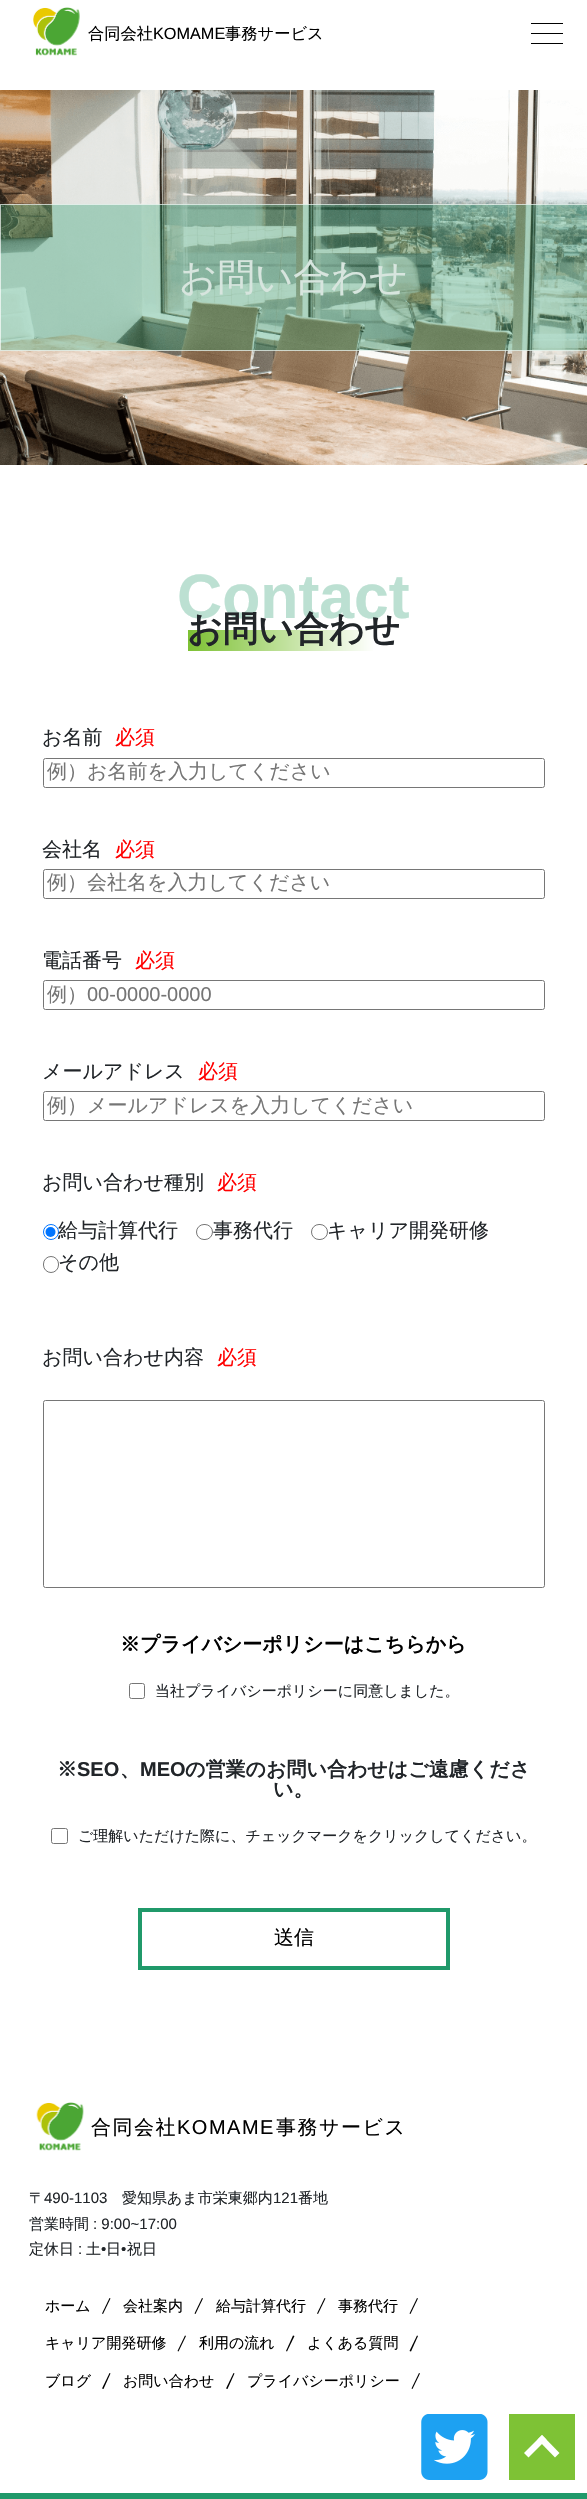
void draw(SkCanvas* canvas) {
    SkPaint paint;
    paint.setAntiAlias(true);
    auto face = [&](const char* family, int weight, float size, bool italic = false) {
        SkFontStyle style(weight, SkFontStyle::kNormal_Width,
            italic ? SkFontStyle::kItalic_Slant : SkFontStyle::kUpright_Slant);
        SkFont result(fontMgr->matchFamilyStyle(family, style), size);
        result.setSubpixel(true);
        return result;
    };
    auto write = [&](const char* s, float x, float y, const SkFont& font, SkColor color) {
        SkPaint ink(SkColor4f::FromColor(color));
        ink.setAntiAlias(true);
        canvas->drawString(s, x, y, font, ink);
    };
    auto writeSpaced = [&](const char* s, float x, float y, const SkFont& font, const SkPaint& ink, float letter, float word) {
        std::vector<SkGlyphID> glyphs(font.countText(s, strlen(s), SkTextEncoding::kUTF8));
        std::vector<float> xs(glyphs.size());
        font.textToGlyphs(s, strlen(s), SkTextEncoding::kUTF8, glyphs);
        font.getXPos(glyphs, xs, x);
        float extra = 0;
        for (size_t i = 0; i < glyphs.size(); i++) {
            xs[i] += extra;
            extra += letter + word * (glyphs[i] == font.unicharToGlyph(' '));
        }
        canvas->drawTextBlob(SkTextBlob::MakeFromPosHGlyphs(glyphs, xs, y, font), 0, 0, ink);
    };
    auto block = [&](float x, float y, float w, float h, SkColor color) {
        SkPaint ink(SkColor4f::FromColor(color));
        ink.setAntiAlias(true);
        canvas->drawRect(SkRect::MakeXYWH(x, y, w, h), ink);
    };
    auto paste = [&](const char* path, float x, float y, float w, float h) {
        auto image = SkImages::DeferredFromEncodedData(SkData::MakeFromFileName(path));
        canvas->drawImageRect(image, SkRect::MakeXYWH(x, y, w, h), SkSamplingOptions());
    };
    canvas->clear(SK_ColorWHITE);
    paste("pic1.png", 33, 7, 47, 49);
    auto kFont1 = face("WenQuanYi Zen Hei", 500, 16.25f);
    write("合同会社", 88, 39, kFont1, SK_ColorBLACK);
    auto kFont2 = face("Liberation Sans", 400, 16.25f);
    write("KOMAME", 153, 39, kFont2, SK_ColorBLACK);
    write("事務サービス", 225, 39, kFont1, SK_ColorBLACK);
    block(531, 23, 32, 1, SK_ColorBLACK);
    block(531, 33, 32, 1, SK_ColorBLACK);
    block(531, 43, 32, 1, SK_ColorBLACK);
    paste("pic2.png", 0, 90, 587, 375);
    block(0, 204, 587, 147, SkColorSetARGB(84, 32, 154, 106));
    paint.setStyle(SkPaint::kStroke_Style);
    paint.setStrokeWidth(1);
    paint.setColor(SkColorSetARGB(168, 255, 255, 255));
    canvas->drawRect(SkRect::MakeXYWH(0.5f, 204.5f, 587, 146), paint);
    auto kFont3 = face("WenQuanYi Zen Hei", 500, 37.5f);
    write("お問い合わせ", 179, 290, kFont3, SkColorSetRGB(215, 229, 222));
    auto kFont4 = face("Liberation Sans", 700, 62.5f);
    write("Contact", 177, 618, kFont4, SkColorSetRGB(188, 224, 210));
    paint.setStyle(SkPaint::kFill_Style);
    {
        const SkColor colors[] = {SkColorSetRGB(125, 193, 51), SK_ColorWHITE};
        const float stops[] = {0, 1};
        const SkPoint ends[] = {{188, 641}, {375, 641}};
        paint.setShader(SkGradientShader::MakeLinear(ends, colors, stops, 2, SkTileMode::kClamp));
        paint.setAlpha(255);
    }
    canvas->drawRect(SkRect::MakeXYWH(188, 630, 185, 21), paint);
    auto kFont5 = face("WenQuanYi Zen Hei", 700, 35);
    write("お問い合わせ", 187, 641, kFont5, SkColorSetRGB(33, 37, 41));
    auto kFont6 = face("WenQuanYi Zen Hei", 500, 20);
    write("お名前", 42, 744, kFont6, SkColorSetRGB(33, 37, 41));
    write("必須", 115, 744, kFont6, SkColorSetRGB(255, 0, 0));
    paint.setStyle(SkPaint::kStroke_Style);
    paint.setShader(nullptr);
    paint.setColor(SkColorSetRGB(118, 118, 118));
    canvas->drawRoundRect(SkRect::MakeXYWH(43.5f, 758.5f, 501, 29), 2, 2, paint);
    write("例）お名前を入力してください", 47, 778, kFont6, SkColorSetRGB(117, 117, 117));
    write("会社名", 42, 856, kFont6, SkColorSetRGB(33, 37, 41));
    write("必須", 115, 856, kFont6, SkColorSetRGB(255, 0, 0));
    canvas->drawRoundRect(SkRect::MakeXYWH(43.5f, 869.5f, 501, 29), 2, 2, paint);
    write("例）会社名を入力してください", 47, 889, kFont6, SkColorSetRGB(117, 117, 117));
    write("電話番号", 42, 967, kFont6, SkColorSetRGB(33, 37, 41));
    write("必須", 135, 967, kFont6, SkColorSetRGB(255, 0, 0));
    canvas->drawRoundRect(SkRect::MakeXYWH(43.5f, 980.5f, 501, 29), 2, 2, paint);
    write("例）", 47, 1001, kFont6, SkColorSetRGB(117, 117, 117));
    auto kFont7 = face("Liberation Sans", 400, 20);
    write("00-0000-0000", 87, 1001, kFont7, SkColorSetRGB(117, 117, 117));
    write("メールアドレス", 42, 1078, kFont6, SkColorSetRGB(33, 37, 41));
    write("必須", 198, 1078, kFont6, SkColorSetRGB(255, 0, 0));
    canvas->drawRoundRect(SkRect::MakeXYWH(43.5f, 1091.5f, 501, 29), 2, 2, paint);
    write("例）メールアドレスを入力してください", 47, 1112, kFont6, SkColorSetRGB(117, 117, 117));
    write("お問い合わせ種別", 42, 1189, kFont6, SkColorSetRGB(33, 37, 41));
    write("必須", 217, 1189, kFont6, SkColorSetRGB(255, 0, 0));
    paint.setColor(SkColorSetRGB(0, 117, 255));
    canvas->drawCircle(51, 1232, 7.5f, paint);
    paint.setStyle(SkPaint::kFill_Style);
    canvas->drawCircle(50.5f, 1232, 5, paint);
    write("給与計算代行", 58, 1237, kFont6, SkColorSetRGB(33, 37, 41));
    paint.setStyle(SkPaint::kStroke_Style);
    paint.setColor(SkColorSetRGB(118, 118, 118));
    canvas->drawRoundRect(SkRect::MakeXYWH(196.5f, 1224.5f, 16, 15), 7.5f, 7.5f, paint);
    write("事務代行", 213, 1237, kFont6, SkColorSetRGB(33, 37, 41));
    canvas->drawRoundRect(SkRect::MakeXYWH(311.5f, 1224.5f, 16, 15), 7.5f, 7.5f, paint);
    write("キャリア開発研修", 327, 1237, kFont6, SkColorSetRGB(33, 37, 41));
    canvas->drawRoundRect(SkRect::MakeXYWH(43.5f, 1256.5f, 15, 16), 7.5f, 7.5f, paint);
    write("その他", 58, 1269, kFont6, SkColorSetRGB(33, 37, 41));
    write("お問い合わせ内容", 42, 1364, kFont6, SkColorSetRGB(33, 37, 41));
    write("必須", 217, 1364, kFont6, SkColorSetRGB(255, 0, 0));
    canvas->drawRoundRect(SkRect::MakeXYWH(43.5f, 1400.5f, 501, 187), 2, 2, paint);
    auto kFont8 = face("WenQuanYi Zen Hei", 700, 20);
    write("※プライバシーポリシーはこちらから", 120, 1651, kFont8, SK_ColorBLACK);
    canvas->drawRoundRect(SkRect::MakeXYWH(129.5f, 1683.5f, 15, 15), 2, 2, paint);
    auto kFont9 = face("WenQuanYi Zen Hei", 500, 15);
    write("当社プライバシーポリシーに同意しました。", 155, 1696, kFont9, SkColorSetRGB(33, 37, 41));
    write("※", 57, 1776, kFont8, SkColorSetRGB(33, 37, 41));
    auto kFont10 = face("Liberation Sans", 700, 20);
    write("SEO", 77, 1776, kFont10, SkColorSetRGB(33, 37, 41));
    write("、", 120, 1776, kFont8, SkColorSetRGB(33, 37, 41));
    write("MEO", 140, 1776, kFont10, SkColorSetRGB(33, 37, 41));
    write("の営業のお問い合わせはご遠慮くださ", 185, 1776, kFont8, SkColorSetRGB(33, 37, 41));
    write("い。", 273, 1796, kFont8, SkColorSetRGB(33, 37, 41));
    canvas->drawRoundRect(SkRect::MakeXYWH(51.5f, 1828.5f, 16, 15), 2, 2, paint);
    write("ご理解いただけた際に、チェックマークをクリックしてください。", 78, 1841, kFont9, SkColorSetRGB(33, 37, 41));
    paint.setStrokeWidth(4);
    paint.setColor(SkColorSetRGB(32, 153, 106));
    canvas->drawRect(SkRect::MakeXYWH(140, 1910, 308, 58), paint);
    write("送信", 274, 1944, kFont6, SK_ColorBLACK);
    paste("pic3.png", 36, 2102, 48, 49);
    paint.setStyle(SkPaint::kFill_Style);
    paint.setColor(SK_ColorBLACK);
    writeSpaced("合同会社", 91, 2134, kFont6, paint, 1.5f, 0);
    writeSpaced("KOMAME", 177, 2134, kFont7, paint, 1.5f, 0);
    writeSpaced("事務サービス", 276, 2134, kFont6, paint, 1.5f, 0);
    write("〒", 29, 2203, kFont9, SkColorSetRGB(33, 37, 41));
    auto kFont11 = face("Liberation Sans", 400, 15);
    write("490-1103", 44, 2203, kFont11, SkColorSetRGB(33, 37, 41));
    write("愛知県あま市栄東郷内", 122, 2203, kFont9, SkColorSetRGB(33, 37, 41));
    write("121", 273, 2203, kFont11, SkColorSetRGB(33, 37, 41));
    write("番地", 298, 2203, kFont9, SkColorSetRGB(33, 37, 41));
    write("営業時間", 29, 2229, kFont9, SkColorSetRGB(33, 37, 41));
    write(": 9:00~17:00", 93, 2229, kFont11, SkColorSetRGB(33, 37, 41));
    write("定休日", 29, 2254, kFont9, SkColorSetRGB(33, 37, 41));
    write(":", 78, 2254, kFont11, SkColorSetRGB(33, 37, 41));
    write("土", 86, 2254, kFont9, SkColorSetRGB(33, 37, 41));
    write("•", 101, 2254, kFont11, SkColorSetRGB(33, 37, 41));
    write("日", 106, 2254, kFont9, SkColorSetRGB(33, 37, 41));
    write("•", 121, 2254, kFont11, SkColorSetRGB(33, 37, 41));
    write("祝日", 127, 2254, kFont9, SkColorSetRGB(33, 37, 41));
    write("ホーム", 45, 2311, kFont9, SK_ColorBLACK);
    canvas->drawPath(SkPathBuilder().moveTo(109.5f, 2298).lineTo(110.5f, 2298.5f).lineTo(103, 2314).lineTo(102, 2313.5f).close().detach(), paint);
    write("会社案内", 123, 2311, kFont9, SK_ColorBLACK);
    canvas->drawPath(SkPathBuilder().moveTo(202, 2298).lineTo(203, 2298.5f).lineTo(195.5f, 2314).lineTo(194.5f, 2313.5f).close().detach(), paint);
    write("給与計算代行", 216, 2311, kFont9, SK_ColorBLACK);
    canvas->drawPath(SkPathBuilder().moveTo(324.5f, 2298).lineTo(325.5f, 2298.5f).lineTo(318, 2314).lineTo(317, 2313.5f).close().detach(), paint);
    write("事務代行", 338, 2311, kFont9, SK_ColorBLACK);
    canvas->drawPath(SkPathBuilder().moveTo(417, 2298).lineTo(418, 2298.5f).lineTo(410.5f, 2314).lineTo(409.5f, 2313.5f).close().detach(), paint);
    write("キャリア開発研修", 45, 2348, kFont9, SK_ColorBLACK);
    canvas->drawPath(SkPathBuilder().moveTo(185, 2335.5f).lineTo(186, 2336).lineTo(178.5f, 2351.5f).lineTo(177.5f, 2351).close().detach(), paint);
    write("利用の流れ", 199, 2348, kFont9, SK_ColorBLACK);
    canvas->drawPath(SkPathBuilder().moveTo(293, 2335.5f).lineTo(294.5f, 2336).lineTo(287, 2351.5f).lineTo(286, 2351).close().detach(), paint);
    write("よくある質問", 307, 2348, kFont9, SK_ColorBLACK);
    canvas->drawPath(SkPathBuilder().moveTo(417, 2335.5f).lineTo(418, 2336).lineTo(411, 2351.5f).lineTo(409.5f, 2351).close().detach(), paint);
    write("ブログ", 45, 2386, kFont9, SK_ColorBLACK);
    canvas->drawPath(SkPathBuilder().moveTo(109.5f, 2373).lineTo(110.5f, 2373.5f).lineTo(103.5f, 2389).lineTo(102, 2388.5f).close().detach(), paint);
    write("お問い合わせ", 123, 2386, kFont9, SK_ColorBLACK);
    canvas->drawPath(SkPathBuilder().moveTo(233.5f, 2373).lineTo(234.5f, 2373.5f).lineTo(227.5f, 2389).lineTo(226, 2388.5f).close().detach(), paint);
    write("プライバシーポリシー", 247, 2386, kFont9, SK_ColorBLACK);
    canvas->drawPath(SkPathBuilder().moveTo(419, 2373).lineTo(420, 2373.5f).lineTo(412.5f, 2389).lineTo(411.5f, 2388.5f).close().detach(), paint);
    paste("pic4.png", 421, 2414, 67, 66);
    block(509, 2414, 66, 66, SkColorSetRGB(126, 194, 53));
    paint.setColor(SK_ColorWHITE);
    canvas->drawPath(SkPathBuilder().moveTo(524, 2453).lineTo(542, 2435).lineTo(546.5f, 2439.5f).lineTo(528.5f, 2457.5f).close().detach(), paint);
    canvas->drawPath(SkPathBuilder().moveTo(537.5f, 2439.5f).lineTo(542, 2435).lineTo(559.5f, 2453).lineTo(555, 2457.5f).close().detach(), paint);
    block(0, 2493, 587, 6, SkColorSetRGB(32, 153, 106));
}
